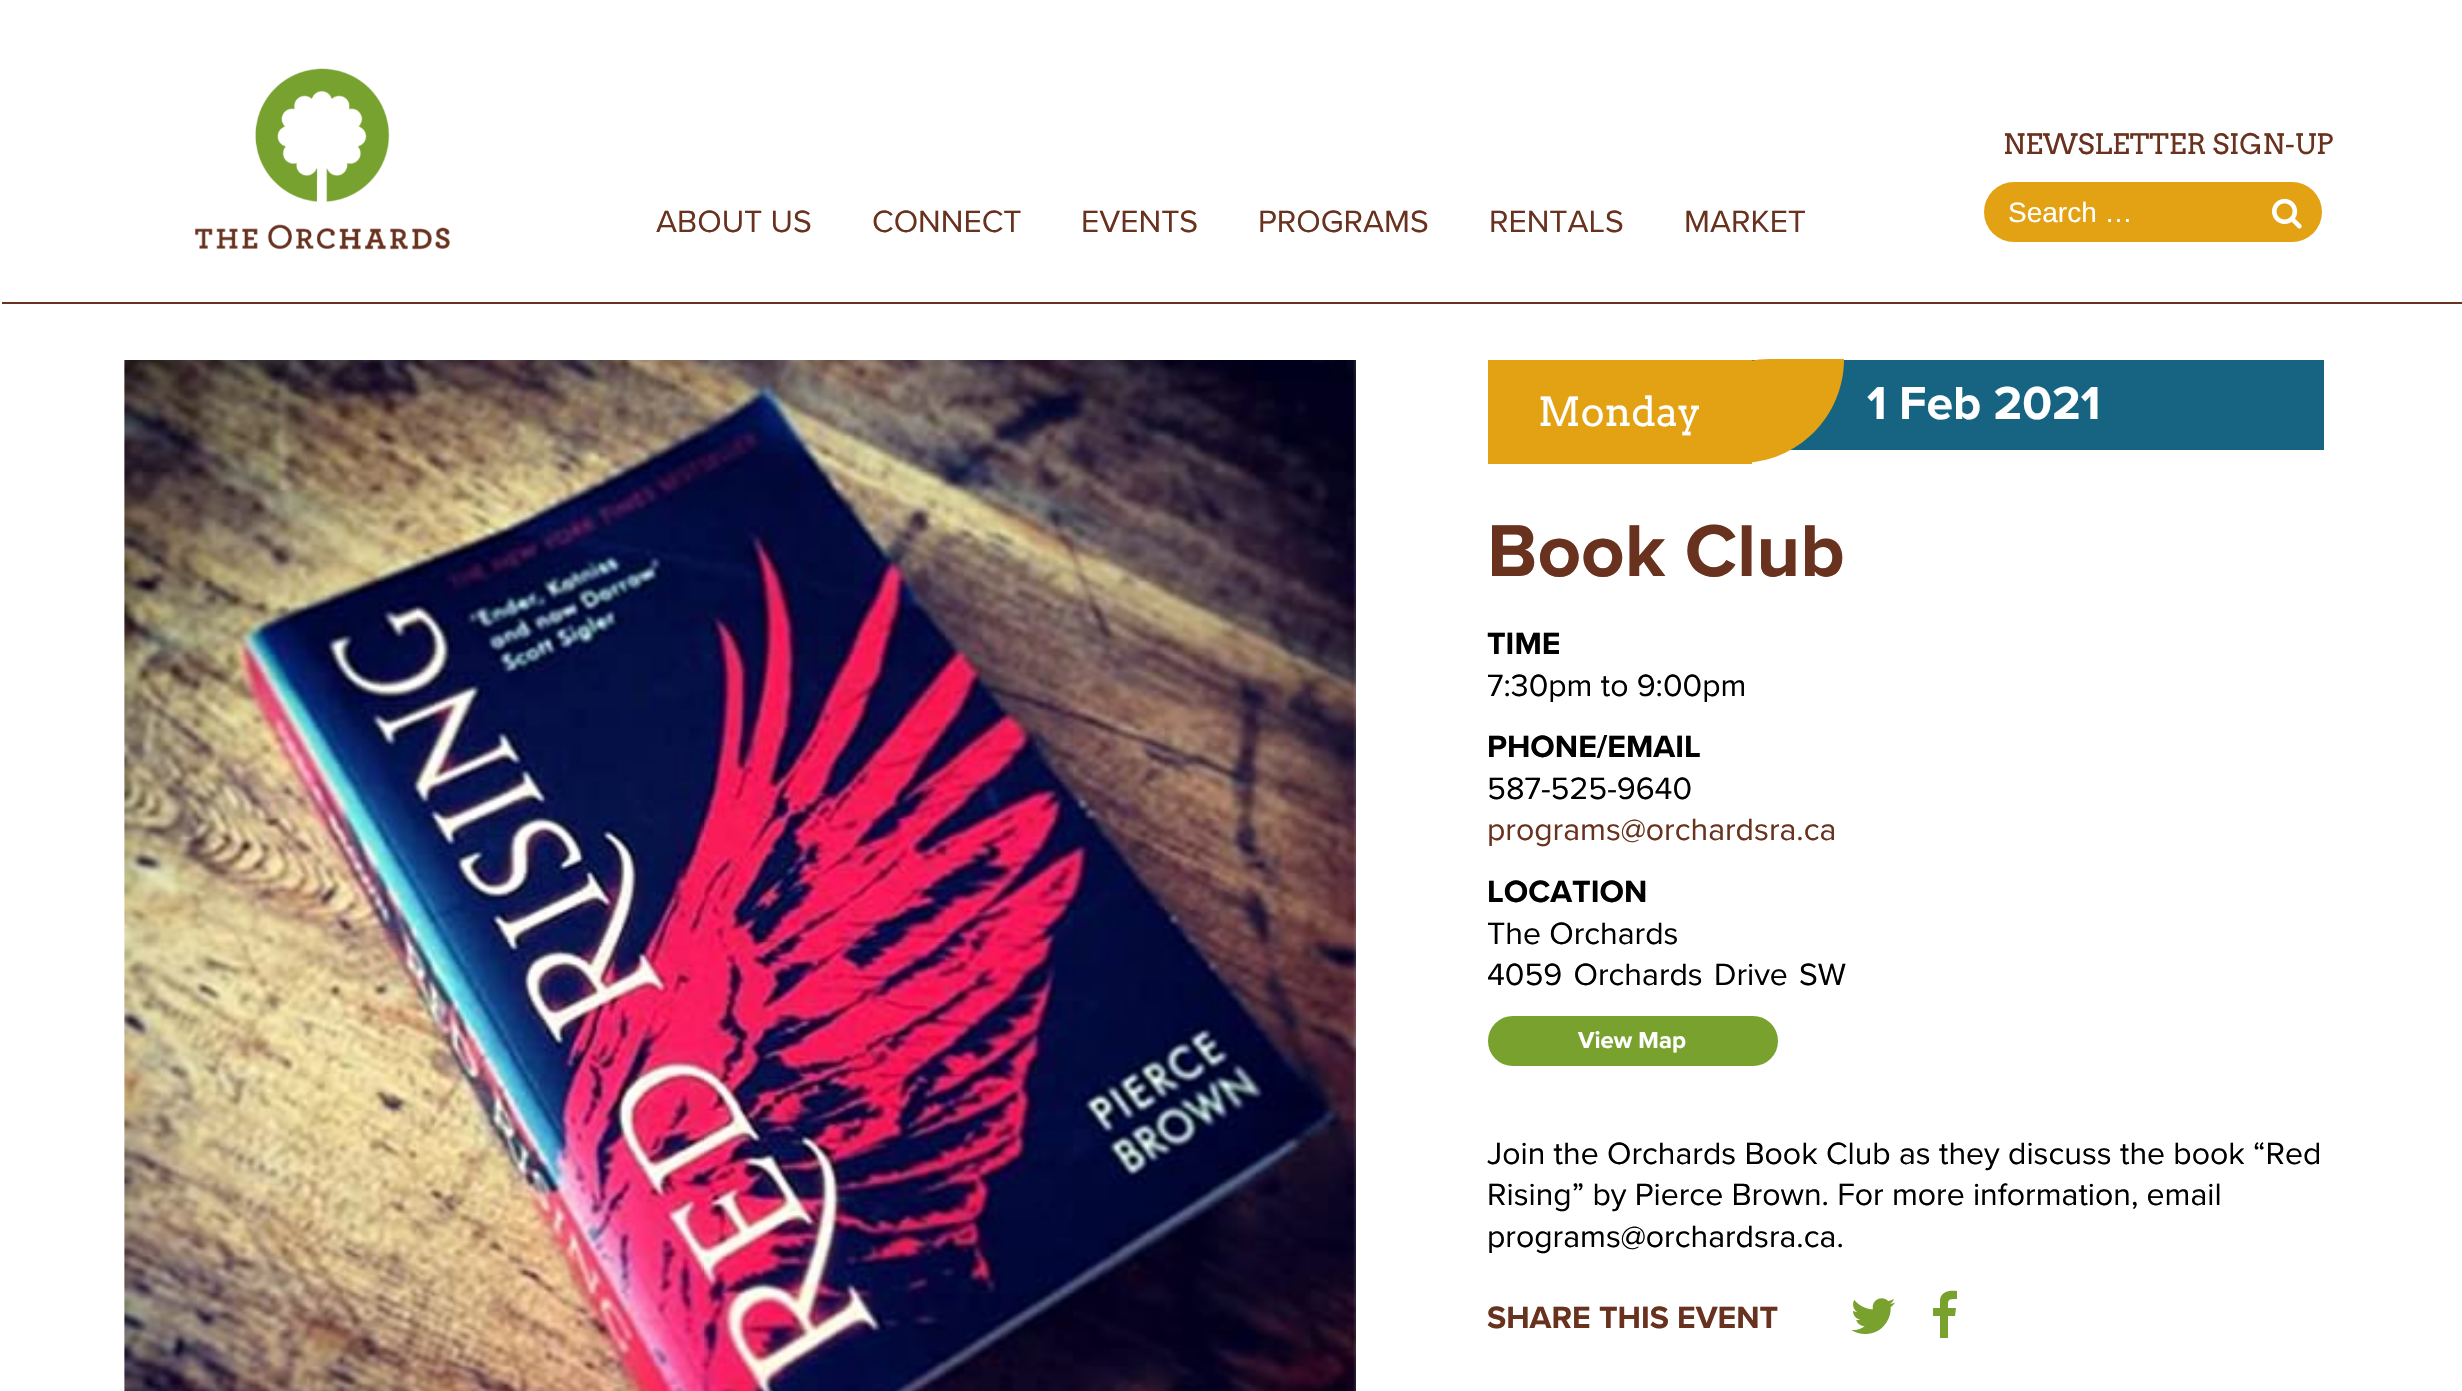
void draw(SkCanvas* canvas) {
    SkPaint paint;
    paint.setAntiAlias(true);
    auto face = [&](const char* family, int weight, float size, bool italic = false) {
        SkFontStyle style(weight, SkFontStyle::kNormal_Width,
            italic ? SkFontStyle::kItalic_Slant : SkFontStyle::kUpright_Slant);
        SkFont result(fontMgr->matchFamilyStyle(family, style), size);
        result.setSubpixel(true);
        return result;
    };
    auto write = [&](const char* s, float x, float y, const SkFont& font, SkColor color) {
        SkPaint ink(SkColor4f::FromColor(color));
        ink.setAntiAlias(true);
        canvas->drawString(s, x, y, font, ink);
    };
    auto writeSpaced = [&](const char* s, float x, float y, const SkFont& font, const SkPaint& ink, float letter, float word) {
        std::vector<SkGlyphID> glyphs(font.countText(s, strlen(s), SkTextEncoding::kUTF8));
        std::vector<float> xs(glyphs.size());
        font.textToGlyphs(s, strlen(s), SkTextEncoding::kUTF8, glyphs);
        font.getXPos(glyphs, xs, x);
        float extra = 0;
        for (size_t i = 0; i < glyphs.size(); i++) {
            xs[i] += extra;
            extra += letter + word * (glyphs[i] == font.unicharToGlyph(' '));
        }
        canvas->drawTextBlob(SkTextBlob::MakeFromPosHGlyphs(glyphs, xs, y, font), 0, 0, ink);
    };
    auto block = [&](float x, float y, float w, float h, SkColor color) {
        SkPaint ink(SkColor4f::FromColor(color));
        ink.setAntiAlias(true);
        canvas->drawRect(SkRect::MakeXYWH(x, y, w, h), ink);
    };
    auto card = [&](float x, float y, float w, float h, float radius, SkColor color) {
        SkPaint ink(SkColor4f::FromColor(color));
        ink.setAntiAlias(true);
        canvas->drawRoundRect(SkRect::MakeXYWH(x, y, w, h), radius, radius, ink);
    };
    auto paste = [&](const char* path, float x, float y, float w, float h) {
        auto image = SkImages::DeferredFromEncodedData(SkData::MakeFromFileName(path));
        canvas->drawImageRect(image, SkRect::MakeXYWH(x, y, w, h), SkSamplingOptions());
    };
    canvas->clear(SK_ColorWHITE);
    block(0, 302, 2462, 2, SkColorSetRGB(105, 50, 31));
    block(0, 302, 2, 2, SK_ColorWHITE);
    paste("pic1.png", 195, 68, 255, 182);
    auto kFont1 = face("Proxima Nova", 400, 32);
    write("ABOUT US", 656, 232, kFont1, SkColorSetRGB(105, 50, 31));
    write("CONNECT", 872, 232, kFont1, SkColorSetRGB(105, 50, 31));
    write("EVENTS", 1081, 232, kFont1, SkColorSetRGB(105, 50, 31));
    write("PROGRAMS", 1258, 232, kFont1, SkColorSetRGB(105, 50, 31));
    write("RENTALS", 1489, 232, kFont1, SkColorSetRGB(105, 50, 31));
    write("MARKET", 1684, 232, kFont1, SkColorSetRGB(105, 50, 31));
    auto kFont2 = face("Arvo", 400, 28);
    write("NEWSLETTER SIGN-UP", 2003, 154, kFont2, SkColorSetRGB(105, 50, 31));
    card(1984, 182, 338, 60, 30, SkColorSetRGB(226, 162, 20));
    auto kFont3 = face("Liberation Sans", 400, 28);
    write("Search …", 2008, 222, kFont3, SK_ColorWHITE);
    paste("pic2.png", 2272, 198, 30, 31);
    paste("pic3.png", 124, 360, 1232, 1031);
    block(1752, 360, 572, 90, SkColorSetRGB(22, 100, 129));
    paint.setColor(SkColorSetRGB(226, 162, 20));
    canvas->drawPath(SkPathBuilder().moveTo(1666, 463).cubicTo(1666, 406, 1713, 359, 1770, 359).lineTo(1844, 359).cubicTo(1844, 416, 1798, 463, 1740, 463).close().detach(), paint);
    block(1488, 360, 264, 104, SkColorSetRGB(226, 162, 20));
    auto kFont4 = face("Arvo", 400, 40);
    write("Monday", 1538, 426, kFont4, SK_ColorWHITE);
    auto kFont5 = face("Proxima Nova", 700, 48);
    write("1 Feb 2021", 1867, 419, kFont5, SK_ColorWHITE);
    auto kFont6 = face("Proxima Nova", 700, 76);
    write("Book Club", 1487, 576, kFont6, SkColorSetRGB(105, 50, 31));
    auto kFont7 = face("Proxima Nova", 700, 32);
    write("TIME", 1487, 654, kFont7, SK_ColorBLACK);
    write("7:30pm to 9:00pm", 1487, 696, kFont1, SK_ColorBLACK);
    write("PHONE/EMAIL", 1487, 757, kFont7, SK_ColorBLACK);
    write("587-525-9640", 1487, 799, kFont1, SK_ColorBLACK);
    write("programs@orchardsra.ca", 1487, 840, kFont1, SkColorSetRGB(105, 50, 31));
    write("LOCATION", 1487, 902, kFont7, SK_ColorBLACK);
    write("The Orchards", 1487, 944, kFont1, SK_ColorBLACK);
    paint.setColor(SK_ColorBLACK);
    writeSpaced("4059 Orchards Drive SW", 1487, 985, kFont1, paint, 0, 3);
    paint.setColor(SkColorSetRGB(120, 161, 46));
    canvas->drawRoundRect(SkRect::MakeXYWH(1490, 1018, 286, 46), 23, 23, paint);
    paint.setStyle(SkPaint::kStroke_Style);
    paint.setStrokeWidth(4);
    canvas->drawRoundRect(SkRect::MakeXYWH(1490, 1018, 286, 46), 23, 23, paint);
    auto kFont8 = face("Proxima Nova", 700, 24);
    write("View Map", 1578, 1048, kFont8, SK_ColorWHITE);
    write("Join the Orchards Book Club as they discuss the book “Red", 1487, 1164, kFont1, SK_ColorBLACK);
    write("Rising” by Pierce Brown. For more information, email", 1487, 1205, kFont1, SK_ColorBLACK);
    write("programs@orchardsra.ca.", 1487, 1247, kFont1, SK_ColorBLACK);
    write("SHARE THIS EVENT", 1487, 1328, kFont7, SkColorSetRGB(105, 50, 31));
    paste("pic4.png", 1851, 1298, 44, 36);
    paint.setStyle(SkPaint::kFill_Style);
    canvas->drawPath(SkPathBuilder().moveTo(1957, 1291).lineTo(1957, 1299).cubicTo(1948, 1299, 1948, 1299, 1948, 1308).lineTo(1956, 1308).lineTo(1955, 1316).lineTo(1948, 1316).lineTo(1948, 1338).lineTo(1940, 1338).lineTo(1940, 1316).lineTo(1933, 1316).lineTo(1933, 1308).lineTo(1940, 1308).lineTo(1940, 1300).cubicTo(1941, 1291, 1950, 1290, 1957, 1291).close().detach(), paint);
}
